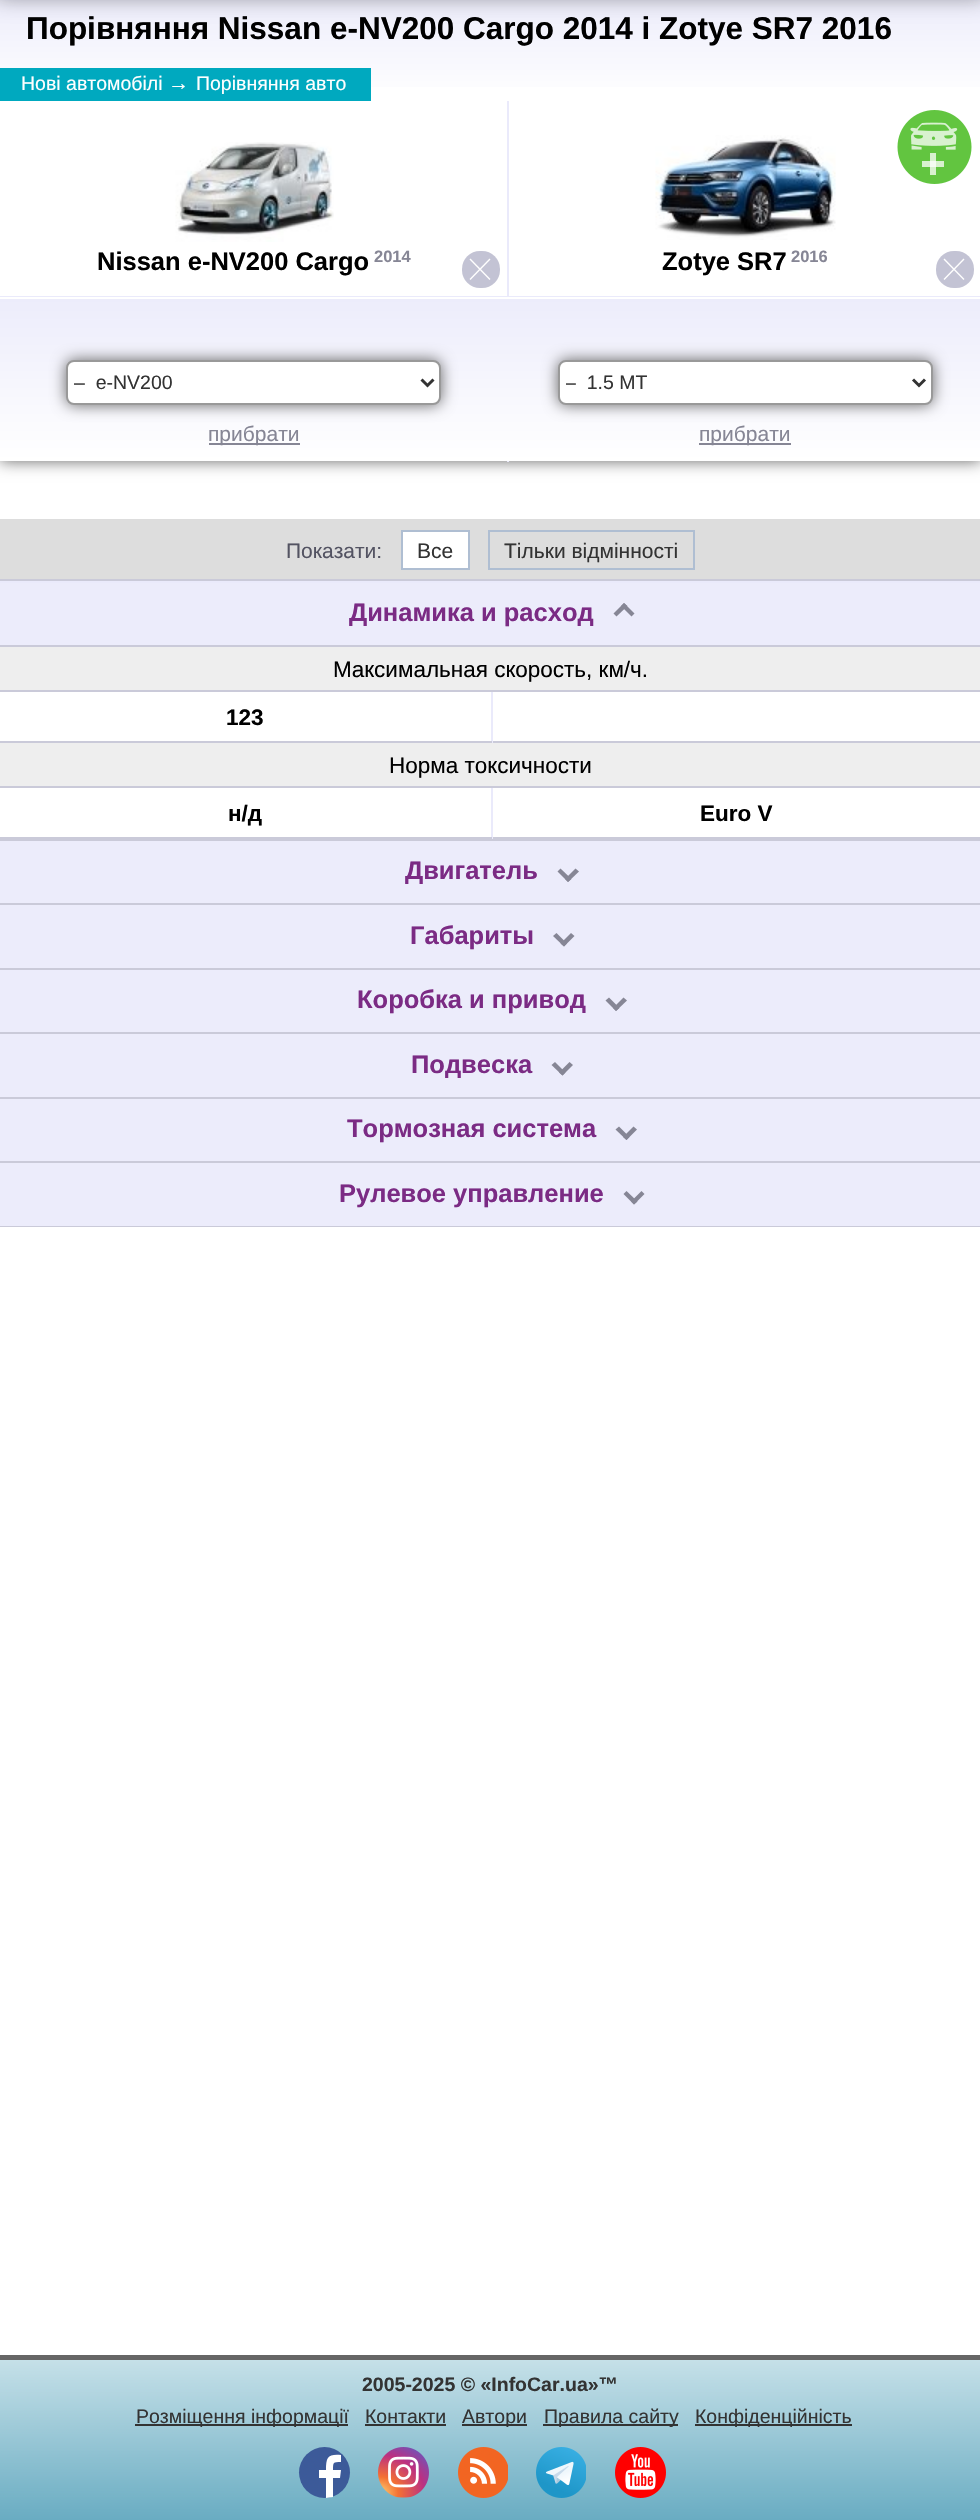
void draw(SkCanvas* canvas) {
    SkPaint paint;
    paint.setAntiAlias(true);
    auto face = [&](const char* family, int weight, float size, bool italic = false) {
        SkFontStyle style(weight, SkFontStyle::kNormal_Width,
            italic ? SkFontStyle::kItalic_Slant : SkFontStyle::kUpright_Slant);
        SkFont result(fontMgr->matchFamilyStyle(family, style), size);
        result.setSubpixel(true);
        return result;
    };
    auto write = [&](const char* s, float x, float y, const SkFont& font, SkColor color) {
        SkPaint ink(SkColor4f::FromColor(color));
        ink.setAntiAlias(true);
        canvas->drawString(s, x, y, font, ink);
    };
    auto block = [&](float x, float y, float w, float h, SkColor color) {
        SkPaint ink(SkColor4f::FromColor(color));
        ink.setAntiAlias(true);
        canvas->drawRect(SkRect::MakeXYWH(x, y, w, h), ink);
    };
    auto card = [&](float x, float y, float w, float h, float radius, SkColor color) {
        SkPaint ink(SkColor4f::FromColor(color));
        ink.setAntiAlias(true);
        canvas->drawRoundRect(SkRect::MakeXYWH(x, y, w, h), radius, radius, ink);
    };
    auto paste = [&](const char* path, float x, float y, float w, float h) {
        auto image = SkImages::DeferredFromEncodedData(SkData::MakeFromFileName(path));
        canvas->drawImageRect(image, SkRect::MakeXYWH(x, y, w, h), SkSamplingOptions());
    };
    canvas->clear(SK_ColorWHITE);
    {
        const SkColor colors[] = {SkColorSetRGB(236, 236, 251), SK_ColorWHITE};
        const float stops[] = {0, 1};
        const SkPoint ends[] = {{491, -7.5f}, {491, 101}};
        paint.setShader(SkGradientShader::MakeLinear(ends, colors, stops, 2, SkTileMode::kClamp));
        paint.setAlpha(255);
    }
    canvas->drawRect(SkRect::MakeXYWH(0, 0, 980, 87), paint);
    paint.setShader(nullptr);
    paint.setColor(SkColorSetARGB(102, 0, 0, 0));
    paint.setMaskFilter(SkMaskFilter::MakeBlur(kNormal_SkBlurStyle, 11));
    canvas->drawRect(SkRect::MakeXYWH(-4, -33, 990, 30), paint);
    paint.setMaskFilter(nullptr);
    auto kFont1 = face("Liberation Sans", 700, 31.5f);
    write("Порівняння Nissan e-NV200 Cargo 2014 і Zotye SR7 2016", 26, 39, kFont1, SK_ColorBLACK);
    block(0, 68, 371, 33, SkColorSetRGB(0, 169, 191));
    auto kFont2 = face("Liberation Sans", 400, 19.5f);
    write("Нові автомобілі", 21, 90, kFont2, SK_ColorWHITE);
    auto kFont3 = face("Liberation Sans", 400, 21);
    write("→", 168, 90, kFont3, SK_ColorWHITE);
    write("Порівняння авто", 196, 90, kFont2, SK_ColorWHITE);
    canvas->save();
    canvas->clipRect(SkRect::MakeXYWH(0, 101, 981, 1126));
    paint.setColor(SkColorSetRGB(102, 102, 102));
    paint.setMaskFilter(SkMaskFilter::MakeBlur(kNormal_SkBlurStyle, 7.5f));
    canvas->drawRect(SkRect::MakeXYWH(0, 101, 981, 360), paint);
    paint.setMaskFilter(nullptr);
    canvas->restore();
    block(0, 101, 980, 195, SK_ColorWHITE);
    paste("pic1.png", 897, 110, 75, 74);
    paste("pic2.png", 175, 142, 159, 100);
    auto kFont4 = face("Liberation Sans", 700, 25.5f);
    write("Nissan e-NV200 Cargo", 97, 270, kFont4, SK_ColorBLACK);
    auto kFont5 = face("Liberation Sans", 700, 16.5f);
    write("2014", 374, 262, kFont5, SkColorSetRGB(134, 134, 149));
    card(462, 251, 38, 37, 18, SkColorSetRGB(195, 195, 212));
    paint.setColor(SK_ColorWHITE);
    canvas->drawPath(SkPathBuilder().moveTo(489.5f, 258.5f).lineTo(490.5f, 259.5f).lineTo(470.5f, 280).lineTo(469.5f, 279).close().detach(), paint);
    canvas->drawPath(SkPathBuilder().moveTo(469.5f, 259.5f).lineTo(470.5f, 258.5f).lineTo(490.5f, 279).lineTo(489.5f, 280).close().detach(), paint);
    block(0, 296, 980, 1, SkColorSetRGB(234, 234, 251));
    block(507, 101, 2, 196, SkColorSetRGB(234, 234, 251));
    paste("pic3.png", 655, 135, 181, 105);
    write("Zotye SR7", 662, 270, kFont4, SK_ColorBLACK);
    write("2016", 791, 262, kFont5, SkColorSetRGB(134, 134, 149));
    card(936, 251, 38, 37, 18, SkColorSetRGB(195, 195, 212));
    canvas->drawPath(SkPathBuilder().moveTo(963.5f, 258.5f).lineTo(964.5f, 259.5f).lineTo(944.5f, 280).lineTo(943.5f, 279).close().detach(), paint);
    canvas->drawPath(SkPathBuilder().moveTo(943.5f, 259.5f).lineTo(944.5f, 258.5f).lineTo(964.5f, 279).lineTo(963.5f, 280).close().detach(), paint);
    {
        const SkColor colors[] = {SkColorSetRGB(236, 236, 251), SK_ColorWHITE};
        const float stops[] = {0, 1};
        const SkPoint ends[] = {{254, 136}, {254, 299}};
        paint.setShader(SkGradientShader::MakeLinear(ends, colors, stops, 2, SkTileMode::kClamp));
        paint.setAlpha(255);
    }
    canvas->drawRect(SkRect::MakeXYWH(0, 297, 509, 2), paint);
    {
        const SkColor colors[] = {SkColorSetRGB(236, 236, 251), SK_ColorWHITE};
        const float stops[] = {0, 1};
        const SkPoint ends[] = {{254, 298}, {254, 461}};
        paint.setShader(SkGradientShader::MakeLinear(ends, colors, stops, 2, SkTileMode::kClamp));
        paint.setAlpha(255);
    }
    canvas->drawRect(SkRect::MakeXYWH(0, 299, 509, 162), paint);
    paint.setShader(nullptr);
    paint.setColor(SkColorSetRGB(102, 102, 102));
    paint.setMaskFilter(SkMaskFilter::MakeBlur(kNormal_SkBlurStyle, 7.5f));
    canvas->drawRoundRect(SkRect::MakeXYWH(66, 360, 375, 45), 8, 8, paint);
    paint.setMaskFilter(nullptr);
    paint.setColor(SK_ColorWHITE);
    canvas->drawRoundRect(SkRect::MakeXYWH(67, 361, 373, 43), 7, 7, paint);
    paint.setStyle(SkPaint::kStroke_Style);
    paint.setStrokeWidth(2);
    paint.setColor(SkColorSetRGB(153, 153, 153));
    canvas->drawRoundRect(SkRect::MakeXYWH(67, 361, 373, 43), 7, 7, paint);
    paint.setStrokeWidth(3);
    paint.setColor(SkColorSetRGB(51, 51, 51));
    canvas->drawPath(SkPathBuilder().moveTo(421.5f, 379.5f).lineTo(427.5f, 385.5f).lineTo(433.5f, 379.5f).detach(), paint);
    write("–  e-NV200", 74, 389, kFont2, SkColorSetRGB(51, 51, 51));
    block(209, 443, 91, 2, SkColorSetRGB(134, 134, 149));
    write("прибрати", 208, 441, kFont3, SkColorSetRGB(134, 134, 149));
    block(507, 461, 2, 1, SkColorSetRGB(234, 234, 251));
    paint.setStyle(SkPaint::kFill_Style);
    {
        const SkColor colors[] = {SkColorSetRGB(236, 236, 251), SK_ColorWHITE};
        const float stops[] = {0, 1};
        const SkPoint ends[] = {{746, 136}, {746, 299}};
        paint.setShader(SkGradientShader::MakeLinear(ends, colors, stops, 2, SkTileMode::kClamp));
        paint.setAlpha(255);
    }
    canvas->drawRect(SkRect::MakeXYWH(509, 297, 471, 2), paint);
    {
        const SkColor colors[] = {SkColorSetRGB(236, 236, 251), SK_ColorWHITE};
        const float stops[] = {0, 1};
        const SkPoint ends[] = {{746, 298}, {746, 461}};
        paint.setShader(SkGradientShader::MakeLinear(ends, colors, stops, 2, SkTileMode::kClamp));
        paint.setAlpha(255);
    }
    canvas->drawRect(SkRect::MakeXYWH(509, 299, 471, 162), paint);
    paint.setShader(nullptr);
    paint.setColor(SkColorSetRGB(102, 102, 102));
    paint.setMaskFilter(SkMaskFilter::MakeBlur(kNormal_SkBlurStyle, 7.5f));
    canvas->drawRoundRect(SkRect::MakeXYWH(558, 360, 375, 45), 8, 8, paint);
    paint.setMaskFilter(nullptr);
    paint.setColor(SK_ColorWHITE);
    canvas->drawRoundRect(SkRect::MakeXYWH(559, 361, 373, 43), 7, 7, paint);
    paint.setStyle(SkPaint::kStroke_Style);
    paint.setStrokeWidth(2);
    paint.setColor(SkColorSetRGB(153, 153, 153));
    canvas->drawRoundRect(SkRect::MakeXYWH(559, 361, 373, 43), 7, 7, paint);
    paint.setStrokeWidth(3);
    paint.setColor(SkColorSetRGB(51, 51, 51));
    canvas->drawPath(SkPathBuilder().moveTo(913, 379.5f).lineTo(919, 385.5f).lineTo(925, 379.5f).detach(), paint);
    canvas->save();
    canvas->clipRect(SkRect::MakeXYWH(566, 371, 342, 25));
    write("–  1.5 MT", 565, 389, kFont2, SkColorSetRGB(51, 51, 51));
    canvas->restore();
    block(699, 443, 92, 2, SkColorSetRGB(134, 134, 149));
    write("прибрати", 699, 441, kFont3, SkColorSetRGB(134, 134, 149));
    block(0, 519, 980, 60, SkColorSetRGB(221, 221, 221));
    block(0, 579, 980, 2, SkColorSetRGB(202, 202, 217));
    write("Показати:", 286, 558, kFont3, SkColorSetRGB(83, 83, 98));
    paint.setStyle(SkPaint::kFill_Style);
    paint.setColor(SK_ColorWHITE);
    canvas->drawRect(SkRect::MakeXYWH(402, 531, 67, 38), paint);
    paint.setStyle(SkPaint::kStroke_Style);
    paint.setStrokeWidth(2);
    paint.setColor(SkColorSetRGB(175, 190, 210));
    canvas->drawRect(SkRect::MakeXYWH(402, 531, 67, 38), paint);
    write("Все", 417, 558, kFont3, SkColorSetRGB(51, 51, 51));
    canvas->drawRect(SkRect::MakeXYWH(489, 531, 205, 38), paint);
    write("Тільки відмінності", 504, 558, kFont3, SkColorSetRGB(51, 51, 51));
    block(0, 583, 980, 62, SkColorSetRGB(236, 236, 251));
    block(0, 581, 980, 2, SkColorSetRGB(234, 234, 251));
    block(0, 645, 980, 2, SkColorSetRGB(202, 202, 217));
    write("Динамика и расход", 349, 621, kFont4, SkColorSetRGB(123, 43, 132));
    paint.setStyle(SkPaint::kFill_Style);
    paint.setColor(SkColorSetRGB(134, 134, 149));
    canvas->drawPath(SkPathBuilder().moveTo(627.5f, 606).lineTo(616.5f, 616.5f).lineTo(613.5f, 613.5f).lineTo(624, 603).close().detach(), paint);
    canvas->drawPath(SkPathBuilder().moveTo(634.5f, 613.5f).lineTo(631.5f, 616.5f).lineTo(621, 606).lineTo(624, 603).close().detach(), paint);
    block(0, 647, 980, 43, SkColorSetRGB(238, 238, 238));
    block(491, 741, 489, 2, SkColorSetRGB(202, 202, 217));
    block(491, 690, 2, 53, SkColorSetRGB(234, 234, 251));
    block(0, 690, 980, 2, SkColorSetRGB(202, 202, 217));
    auto kFont6 = face("Liberation Sans", 400, 22.5f);
    write("Максимальная скорость, км/ч.", 333, 677, kFont6, SK_ColorBLACK);
    block(0, 741, 492, 2, SkColorSetRGB(202, 202, 217));
    auto kFont7 = face("Liberation Sans", 700, 22.5f);
    write("123", 226, 725, kFont7, SK_ColorBLACK);
    block(0, 743, 980, 43, SkColorSetRGB(238, 238, 238));
    block(491, 837, 489, 2, SkColorSetRGB(202, 202, 217));
    block(491, 786, 2, 53, SkColorSetRGB(234, 234, 251));
    block(0, 786, 980, 2, SkColorSetRGB(202, 202, 217));
    write("Норма токсичности", 389, 773, kFont6, SK_ColorBLACK);
    block(0, 837, 492, 2, SkColorSetRGB(202, 202, 217));
    write("н/д", 228, 821, kFont7, SK_ColorBLACK);
    write("Euro V", 700, 821, kFont7, SK_ColorBLACK);
    block(0, 839, 980, 2, SkColorSetRGB(202, 202, 217));
    block(0, 841, 980, 62, SkColorSetRGB(236, 236, 251));
    block(0, 903, 980, 2, SkColorSetRGB(202, 202, 217));
    write("Двигатель", 405, 879, kFont4, SkColorSetRGB(123, 43, 132));
    canvas->drawPath(SkPathBuilder().moveTo(565, 879).lineTo(575.5f, 868.5f).lineTo(579, 871.5f).lineTo(568, 882).close().detach(), paint);
    canvas->drawPath(SkPathBuilder().moveTo(557.5f, 871.5f).lineTo(560.5f, 868.5f).lineTo(571.5f, 879).lineTo(568, 882).close().detach(), paint);
    block(0, 905, 980, 63, SkColorSetRGB(236, 236, 251));
    block(0, 968, 980, 2, SkColorSetRGB(202, 202, 217));
    write("Габариты", 410, 944, kFont4, SkColorSetRGB(123, 43, 132));
    canvas->drawPath(SkPathBuilder().moveTo(560.5f, 943.5f).lineTo(571, 933).lineTo(574.5f, 936).lineTo(564, 946.5f).close().detach(), paint);
    canvas->drawPath(SkPathBuilder().moveTo(553, 936).lineTo(556.5f, 933).lineTo(567, 943.5f).lineTo(564, 946.5f).close().detach(), paint);
    block(0, 970, 980, 62, SkColorSetRGB(236, 236, 251));
    block(0, 1032, 980, 2, SkColorSetRGB(202, 202, 217));
    write("Коробка и привод", 357, 1008, kFont4, SkColorSetRGB(123, 43, 132));
    canvas->drawPath(SkPathBuilder().moveTo(613, 1008).lineTo(623.5f, 997.5f).lineTo(627, 1000.5f).lineTo(616, 1011).close().detach(), paint);
    canvas->drawPath(SkPathBuilder().moveTo(605.5f, 1000.5f).lineTo(609, 997.5f).lineTo(619.5f, 1008).lineTo(616, 1011).close().detach(), paint);
    block(0, 1034, 980, 63, SkColorSetRGB(236, 236, 251));
    block(0, 1097, 980, 2, SkColorSetRGB(202, 202, 217));
    write("Подвеска", 411, 1073, kFont4, SkColorSetRGB(123, 43, 132));
    canvas->drawPath(SkPathBuilder().moveTo(559, 1072.5f).lineTo(569.5f, 1062).lineTo(573, 1065).lineTo(562.5f, 1075.5f).close().detach(), paint);
    canvas->drawPath(SkPathBuilder().moveTo(551.5f, 1065).lineTo(555, 1062).lineTo(565.5f, 1072.5f).lineTo(562.5f, 1075.5f).close().detach(), paint);
    block(0, 1099, 980, 62, SkColorSetRGB(236, 236, 251));
    block(0, 1161, 980, 2, SkColorSetRGB(202, 202, 217));
    write("Тормозная система", 347, 1137, kFont4, SkColorSetRGB(123, 43, 132));
    canvas->drawPath(SkPathBuilder().moveTo(623, 1137).lineTo(633.5f, 1126.5f).lineTo(637, 1129.5f).lineTo(626.5f, 1140).close().detach(), paint);
    canvas->drawPath(SkPathBuilder().moveTo(615.5f, 1129.5f).lineTo(619, 1126.5f).lineTo(629.5f, 1137).lineTo(626.5f, 1140).close().detach(), paint);
    block(0, 1163, 980, 63, SkColorSetRGB(236, 236, 251));
    block(0, 1226, 980, 1, SkColorSetRGB(202, 202, 217));
    write("Рулевое управление", 339, 1202, kFont4, SkColorSetRGB(123, 43, 132));
    canvas->drawPath(SkPathBuilder().moveTo(631, 1201.5f).lineTo(641.5f, 1191).lineTo(644.5f, 1194).lineTo(634, 1204.5f).close().detach(), paint);
    canvas->drawPath(SkPathBuilder().moveTo(623.5f, 1194).lineTo(626.5f, 1191).lineTo(637.5f, 1201.5f).lineTo(634, 1204.5f).close().detach(), paint);
    {
        const SkColor colors[] = {SkColorSetRGB(197, 224, 232), SkColorSetRGB(105, 172, 194)};
        const float stops[] = {0, 1};
        const SkPoint ends[] = {{491, 2360}, {491, 2520}};
        paint.setShader(SkGradientShader::MakeLinear(ends, colors, stops, 2, SkTileMode::kClamp));
        paint.setAlpha(255);
    }
    canvas->drawRect(SkRect::MakeXYWH(0, 2360, 980, 160), paint);
    block(0, 2355, 980, 5, SkColorSetRGB(102, 102, 102));
    auto kFont8 = face("Liberation Sans", 700, 19.5f);
    write("2005-2025 © «InfoCar.ua»™", 362, 2391, kFont8, SkColorSetRGB(51, 51, 51));
    block(135, 2424, 213, 2, SkColorSetRGB(51, 51, 51));
    write("Розміщення інформації", 136, 2423, kFont2, SkColorSetRGB(51, 51, 51));
    write("Контакти", 365, 2423, kFont2, SkColorSetRGB(51, 51, 51));
    block(365, 2424, 81, 2, SkColorSetRGB(51, 51, 51));
    block(462, 2424, 65, 2, SkColorSetRGB(51, 51, 51));
    write("Автори", 462, 2423, kFont2, SkColorSetRGB(51, 51, 51));
    block(543, 2424, 135, 2, SkColorSetRGB(51, 51, 51));
    write("Правила сайту", 544, 2423, kFont2, SkColorSetRGB(51, 51, 51));
    block(695, 2424, 157, 2, SkColorSetRGB(51, 51, 51));
    write("Конфіденційність", 695, 2423, kFont2, SkColorSetRGB(51, 51, 51));
    paint.setShader(nullptr);
    paint.setColor(SkColorSetRGB(60, 90, 153));
    canvas->drawCircle(324.5f, 2472.5f, 25.5f, paint);
    paint.setColor(SK_ColorWHITE);
    canvas->drawPath(SkPathBuilder().moveTo(333, 2497).lineTo(326, 2498).lineTo(326, 2478).lineTo(319, 2478).lineTo(319, 2470).lineTo(326, 2470).cubicTo(326, 2457, 328, 2454, 341, 2455).lineTo(341, 2462).cubicTo(333, 2462, 333, 2462, 333, 2470).lineTo(341, 2470).lineTo(340, 2478).lineTo(333, 2478).close().detach(), paint);
    paste("pic4.png", 378, 2447, 51, 51);
    paste("pic5.png", 458, 2447, 50, 51);
    paste("pic6.png", 536, 2447, 50, 51);
    paste("pic7.png", 615, 2447, 51, 51);
}
